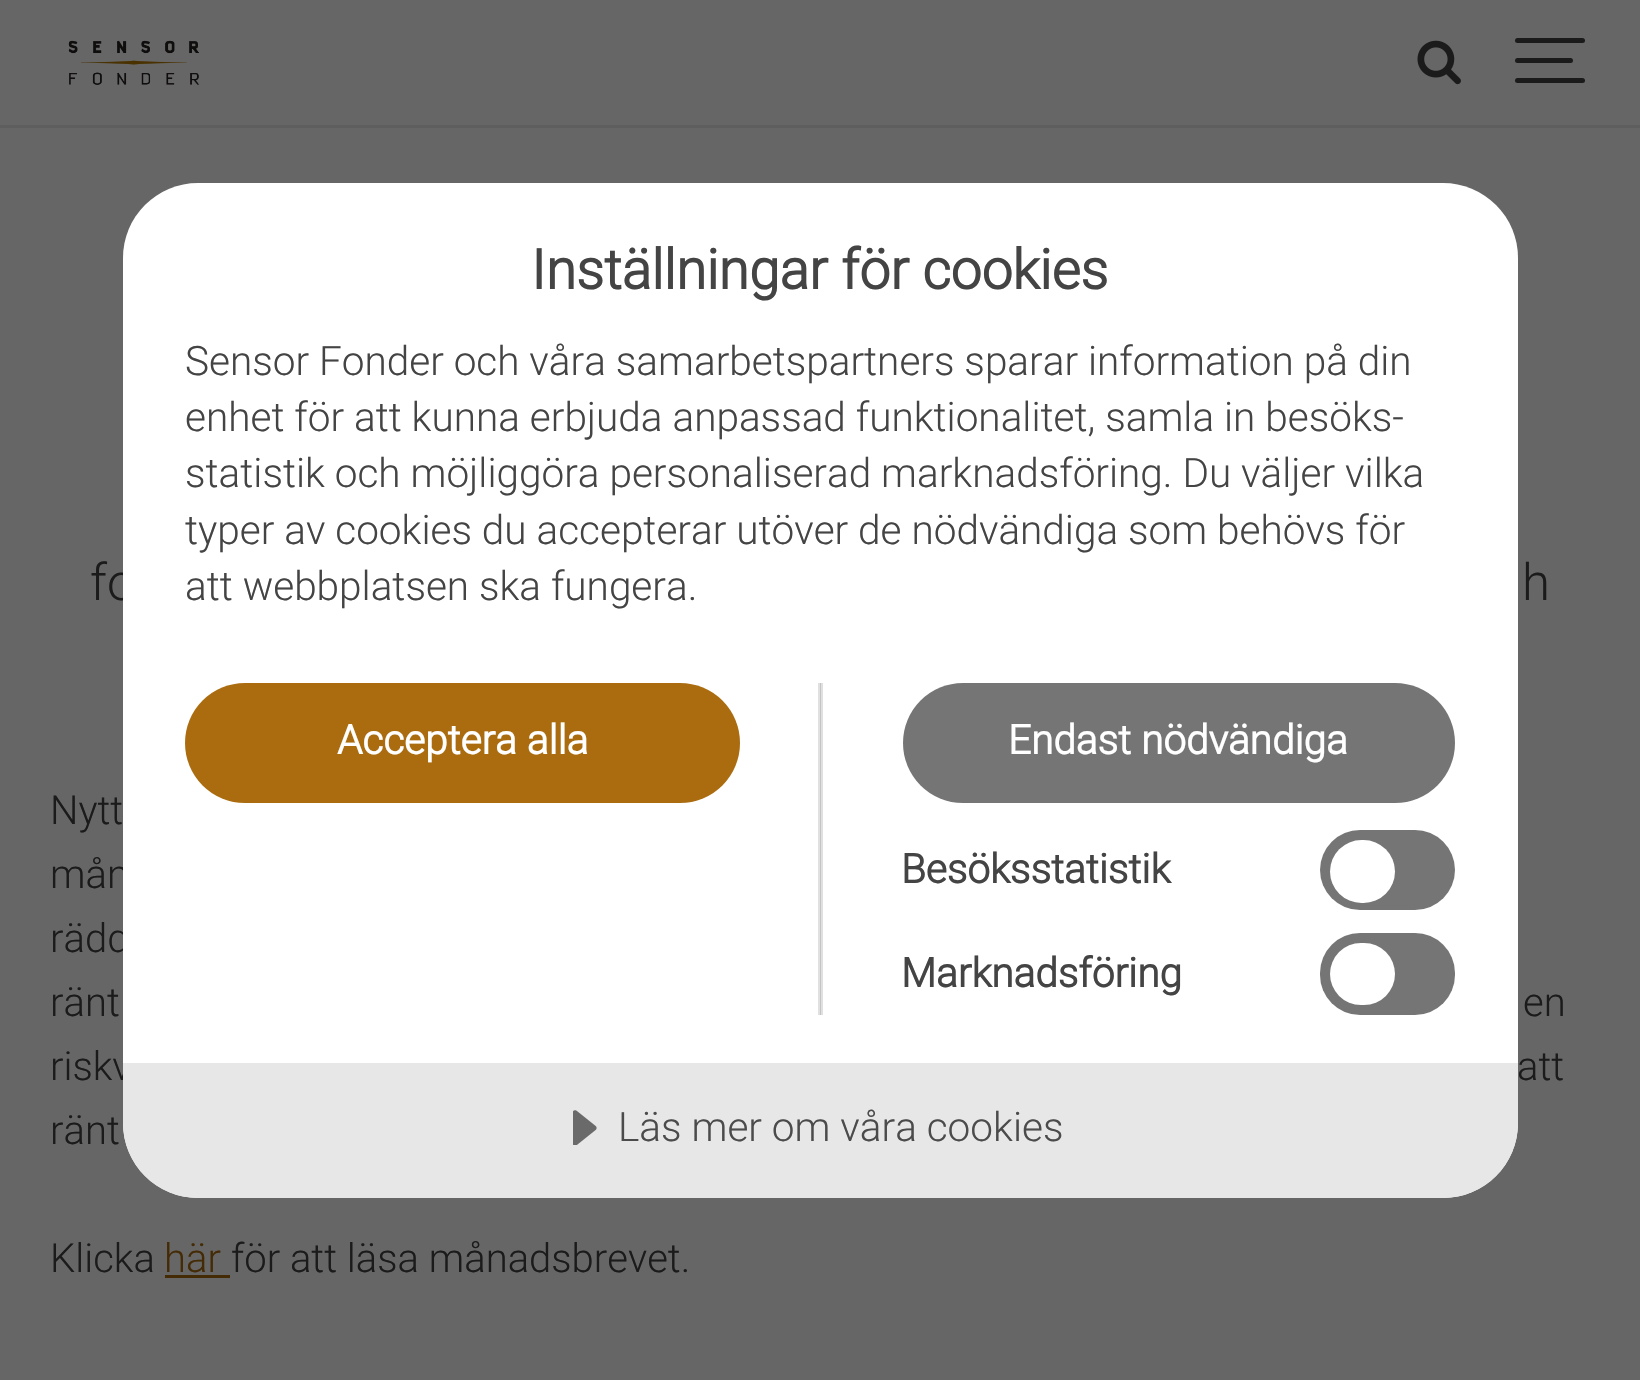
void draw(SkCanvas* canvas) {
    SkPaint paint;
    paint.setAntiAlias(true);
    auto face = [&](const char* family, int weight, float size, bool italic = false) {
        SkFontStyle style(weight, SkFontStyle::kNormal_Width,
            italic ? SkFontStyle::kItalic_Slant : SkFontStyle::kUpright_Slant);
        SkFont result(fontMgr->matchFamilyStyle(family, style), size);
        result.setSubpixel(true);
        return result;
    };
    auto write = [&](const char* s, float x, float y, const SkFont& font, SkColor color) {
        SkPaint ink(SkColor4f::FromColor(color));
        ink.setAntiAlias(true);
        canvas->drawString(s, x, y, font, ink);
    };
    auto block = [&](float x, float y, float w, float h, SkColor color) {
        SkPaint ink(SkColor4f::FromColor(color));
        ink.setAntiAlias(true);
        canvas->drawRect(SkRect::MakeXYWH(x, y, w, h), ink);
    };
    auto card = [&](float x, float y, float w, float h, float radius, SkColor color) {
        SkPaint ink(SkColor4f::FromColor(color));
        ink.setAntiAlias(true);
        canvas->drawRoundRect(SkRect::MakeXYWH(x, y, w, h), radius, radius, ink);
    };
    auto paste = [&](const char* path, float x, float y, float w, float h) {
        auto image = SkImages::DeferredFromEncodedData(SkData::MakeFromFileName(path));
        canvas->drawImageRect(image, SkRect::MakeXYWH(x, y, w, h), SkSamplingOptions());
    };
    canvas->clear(SkColorSetRGB(102, 102, 102));
    paint.setStyle(SkPaint::kStroke_Style);
    paint.setStrokeWidth(3);
    paint.setColor(SkColorSetRGB(94, 94, 94));
    canvas->drawRect(SkRect::MakeXYWH(-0.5f, -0.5f, 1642, 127), paint);
    block(0, 0, 1640, 125, SkColorSetRGB(102, 102, 102));
    paste("pic1.png", 68, 40, 131, 45);
    paste("pic2.png", 1417, 40, 44, 45);
    card(1515, 58, 58, 5, 2.5f, SkColorSetRGB(27, 27, 27));
    card(1515, 38, 70, 5, 2.5f, SkColorSetRGB(27, 27, 27));
    card(1515, 78, 70, 5, 2.5f, SkColorSetRGB(27, 27, 27));
    auto kFont1 = face("Roboto", 300, 51);
    write("fo", 90, 600, kFont1, SkColorSetRGB(27, 27, 27));
    auto kFont2 = face("Roboto", 300, 40);
    write("mån", 50, 888, kFont2, SkColorSetRGB(27, 27, 27));
    write("rädd", 50, 952, kFont2, SkColorSetRGB(27, 27, 27));
    write("riskv", 50, 1080, kFont2, SkColorSetRGB(27, 27, 27));
    card(123, 183, 1395, 1015, 75, SK_ColorWHITE);
    auto kFont3 = face("Roboto", 700, 55.1f);
    write("Inställningar för cookies", 531, 289, kFont3, SkColorSetRGB(68, 68, 68));
    auto kFont4 = face("Roboto", 300, 40.5f);
    write("Sensor Fonder och våra samarbetspartners sparar information på din", 185, 375, kFont4, SkColorSetRGB(68, 68, 68));
    write("enhet för att kunna erbjuda anpassad funktionalitet, samla in besöks-", 185, 431, kFont4, SkColorSetRGB(68, 68, 68));
    write("statistik och möjliggöra personaliserad marknadsföring. Du väljer vilka", 185, 487, kFont4, SkColorSetRGB(68, 68, 68));
    write("typer av cookies du accepterar utöver de nödvändiga som behövs för", 185, 544, kFont4, SkColorSetRGB(68, 68, 68));
    write("att webbplatsen ska fungera.", 185, 600, kFont4, SkColorSetRGB(68, 68, 68));
    block(818, 683, 3, 332, SkColorSetRGB(224, 224, 224));
    card(185, 683, 555, 120, 60, SkColorSetRGB(170, 108, 15));
    auto kFont5 = face("Roboto", 700, 40.5f);
    write("Acceptera alla", 337, 754, kFont5, SK_ColorWHITE);
    block(820, 683, 3, 332, SkColorSetARGB(31, 0, 0, 0));
    card(903, 683, 552, 120, 60, SkColorSetRGB(117, 117, 117));
    write("Endast nödvändiga", 1008, 754, kFont5, SK_ColorWHITE);
    write("Besöksstatistik", 901, 883, kFont5, SkColorSetRGB(68, 68, 68));
    card(1320, 830, 135, 80, 40, SkColorSetRGB(117, 117, 117));
    card(1330, 840, 65, 63, 31.5f, SK_ColorWHITE);
    write("Marknadsföring", 901, 987, kFont5, SkColorSetRGB(68, 68, 68));
    card(1320, 933, 135, 82, 40, SkColorSetRGB(117, 117, 117));
    card(1330, 943, 65, 62, 31, SK_ColorWHITE);
    paint.setStyle(SkPaint::kFill_Style);
    paint.setColor(SkColorSetRGB(231, 231, 231));
    canvas->drawPath(SkPathBuilder().moveTo(123, 1063).lineTo(1518, 1063).lineTo(1518, 1123).cubicTo(1518, 1164.5f, 1484.5f, 1198, 1443, 1198).lineTo(198, 1198).cubicTo(156.5f, 1198, 123, 1164.5f, 123, 1123).close().detach(), paint);
    paste("pic3.png", 573, 1110, 24, 35);
    write("Läs mer om våra cookies", 618, 1141, kFont4, SkColorSetRGB(75, 75, 75));
    write("h", 1522, 600, kFont1, SkColorSetRGB(27, 27, 27));
    write("Nytt", 50, 824, kFont2, SkColorSetRGB(27, 27, 27));
    write("ränt", 50, 1016, kFont2, SkColorSetRGB(27, 27, 27));
    write("en", 1523, 1016, kFont2, SkColorSetRGB(27, 27, 27));
    write("att", 1517, 1080, kFont2, SkColorSetRGB(27, 27, 27));
    write("ränt", 50, 1144, kFont2, SkColorSetRGB(27, 27, 27));
    write("Klicka", 50, 1272, kFont2, SkColorSetRGB(27, 27, 27));
    write("här", 164, 1272, kFont2, SkColorSetRGB(68, 43, 6));
    block(165, 1275, 65, 3, SkColorSetRGB(68, 43, 6));
    write("för att läsa månadsbrevet.", 231, 1272, kFont2, SkColorSetRGB(27, 27, 27));
}
